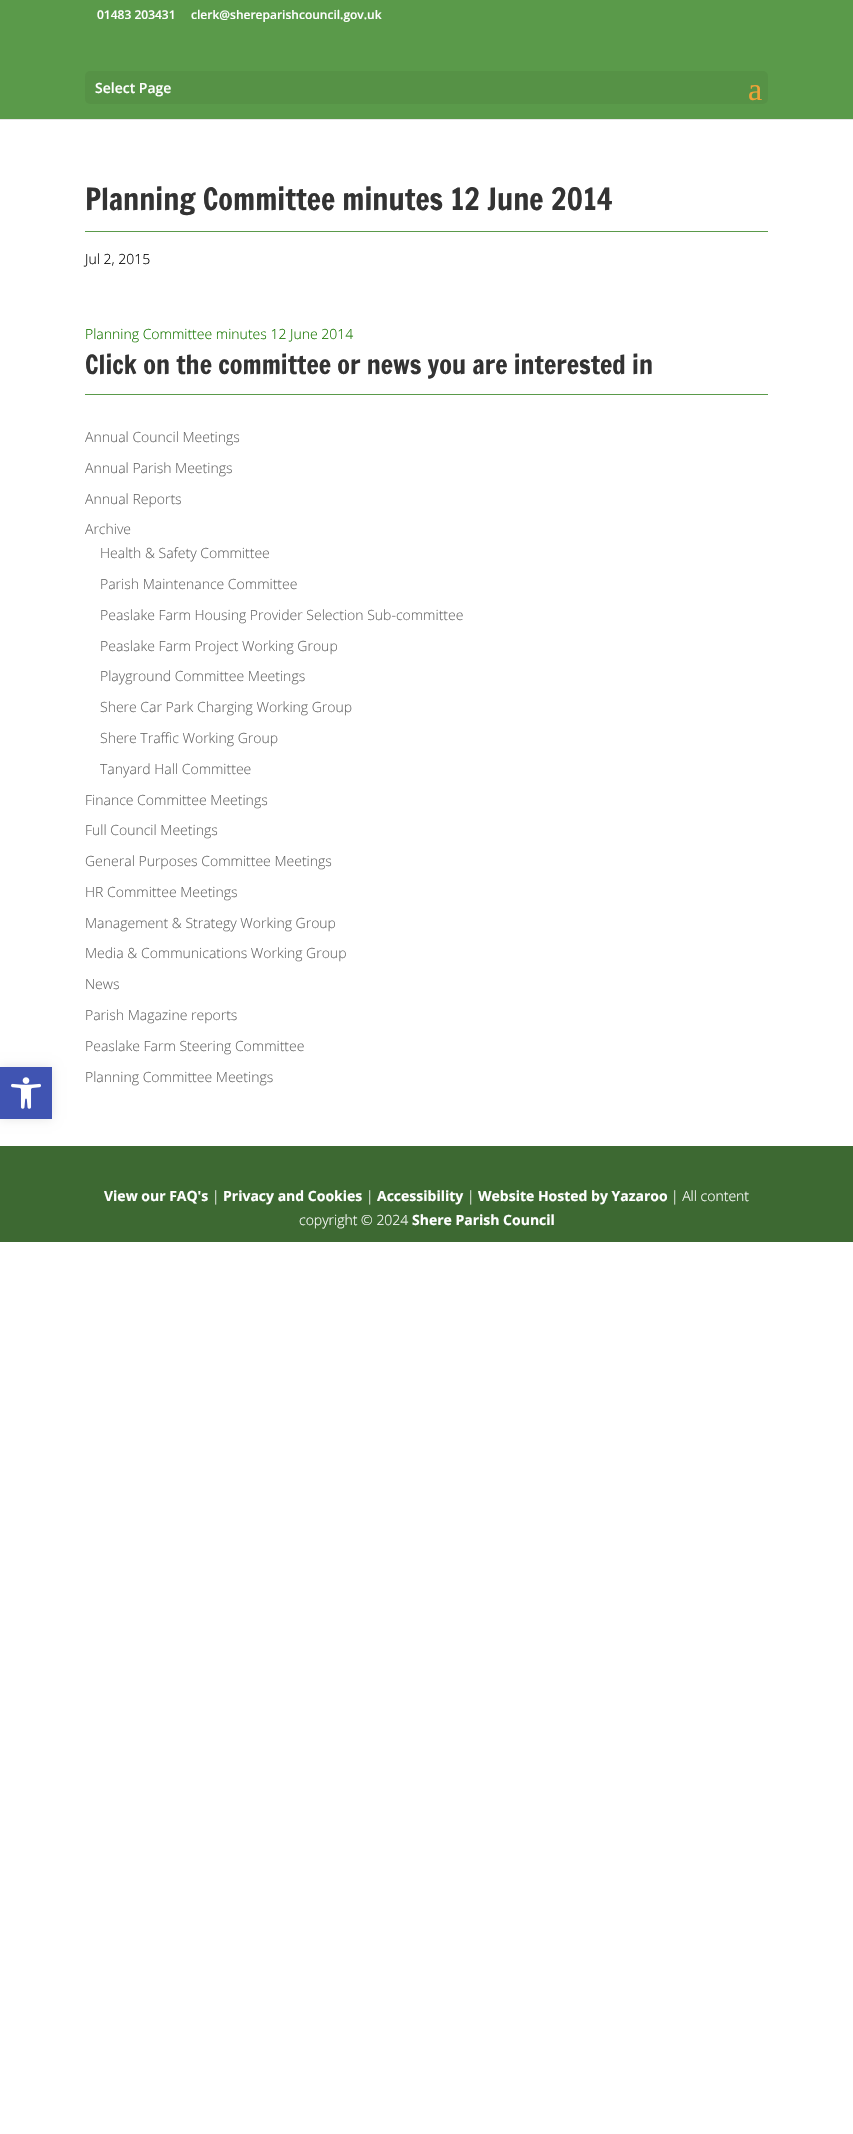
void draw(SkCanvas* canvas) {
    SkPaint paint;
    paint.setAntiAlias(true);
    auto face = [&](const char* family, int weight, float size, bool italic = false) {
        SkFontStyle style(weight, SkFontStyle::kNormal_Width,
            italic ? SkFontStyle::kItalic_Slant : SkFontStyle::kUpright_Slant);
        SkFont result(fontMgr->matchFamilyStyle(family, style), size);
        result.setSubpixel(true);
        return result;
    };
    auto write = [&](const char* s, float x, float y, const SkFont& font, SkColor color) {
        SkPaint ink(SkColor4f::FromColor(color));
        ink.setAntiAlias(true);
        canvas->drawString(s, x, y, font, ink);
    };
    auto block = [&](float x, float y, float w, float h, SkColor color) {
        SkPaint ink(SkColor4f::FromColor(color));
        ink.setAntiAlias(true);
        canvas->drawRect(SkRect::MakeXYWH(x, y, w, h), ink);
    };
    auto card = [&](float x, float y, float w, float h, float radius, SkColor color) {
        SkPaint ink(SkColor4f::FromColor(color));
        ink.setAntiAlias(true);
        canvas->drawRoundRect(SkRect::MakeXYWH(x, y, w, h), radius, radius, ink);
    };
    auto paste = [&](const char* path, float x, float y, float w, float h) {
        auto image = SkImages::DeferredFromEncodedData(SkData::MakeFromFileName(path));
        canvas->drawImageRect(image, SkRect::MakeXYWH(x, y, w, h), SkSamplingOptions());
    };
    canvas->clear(SK_ColorWHITE);
    paint.setColor(SkColorSetARGB(26, 0, 0, 0));
    paint.setMaskFilter(SkMaskFilter::MakeBlur(kNormal_SkBlurStyle, 5));
    canvas->drawRect(SkRect::MakeXYWH(0, 1067, 52, 52), paint);
    paint.setMaskFilter(nullptr);
    block(0, 1067, 52, 52, SkColorSetRGB(64, 84, 178));
    paste("pic1.png", 11, 1077, 30, 32);
    block(0, 0, 853, 119, SkColorSetRGB(90, 154, 74));
    auto kFont1 = face("Open Sans", 600, 12);
    write("01483 203431", 97, 19, kFont1, SK_ColorWHITE);
    write("clerk@shereparishcouncil.gov.uk", 191, 19, kFont1, SK_ColorWHITE);
    block(0, 119, 853, 1, SkColorSetRGB(230, 230, 230));
    card(85, 71, 683, 33, 5, SkColorSetRGB(86, 146, 70));
    auto kFont2 = face("Open Sans", 600, 14);
    write("Select Page", 95, 93, kFont2, SK_ColorWHITE);
    auto kFont3 = face("Liberation Serif", 400, 32);
    write("a", 748, 100, kFont3, SkColorSetRGB(240, 162, 55));
    block(85, 231, 683, 1, SkColorSetRGB(90, 154, 74));
    auto kFont4 = face("Francois One", 400, 30);
    write("Planning Committee minutes 12 June 2014", 85, 210, kFont4, SkColorSetRGB(51, 51, 51));
    auto kFont5 = face("Open Sans", 300, 14);
    write("Jul 2, 2015", 85, 264, kFont5, SK_ColorBLACK);
    write("Planning Committee minutes 12 June 2014", 85, 339, kFont5, SkColorSetRGB(23, 119, 0));
    block(85, 394, 683, 1, SkColorSetRGB(90, 154, 74));
    auto kFont6 = face("Francois One", 400, 26);
    write("Click on the committee or news you are interested in", 85, 374, kFont6, SkColorSetRGB(51, 51, 51));
    write("Annual Council Meetings", 85, 442, kFont5, SkColorSetRGB(102, 102, 102));
    write("Annual Parish Meetings", 85, 473, kFont5, SkColorSetRGB(102, 102, 102));
    write("Annual Reports", 85, 504, kFont5, SkColorSetRGB(102, 102, 102));
    write("Archive", 85, 534, kFont5, SkColorSetRGB(102, 102, 102));
    write("Health & Safety Committee", 100, 558, kFont5, SkColorSetRGB(102, 102, 102));
    write("Parish Maintenance Committee", 100, 589, kFont5, SkColorSetRGB(102, 102, 102));
    write("Peaslake Farm Housing Provider Selection Sub-committee", 100, 620, kFont5, SkColorSetRGB(102, 102, 102));
    write("Peaslake Farm Project Working Group", 100, 651, kFont5, SkColorSetRGB(102, 102, 102));
    write("Playground Committee Meetings", 100, 681, kFont5, SkColorSetRGB(102, 102, 102));
    write("Shere Car Park Charging Working Group", 100, 712, kFont5, SkColorSetRGB(102, 102, 102));
    write("Shere Traffic Working Group", 100, 743, kFont5, SkColorSetRGB(102, 102, 102));
    write("Tanyard Hall Committee", 100, 774, kFont5, SkColorSetRGB(102, 102, 102));
    write("Finance Committee Meetings", 85, 805, kFont5, SkColorSetRGB(102, 102, 102));
    write("Full Council Meetings", 85, 835, kFont5, SkColorSetRGB(102, 102, 102));
    write("General Purposes Committee Meetings", 85, 866, kFont5, SkColorSetRGB(102, 102, 102));
    write("HR Committee Meetings", 85, 897, kFont5, SkColorSetRGB(102, 102, 102));
    write("Management & Strategy Working Group", 85, 928, kFont5, SkColorSetRGB(102, 102, 102));
    write("Media & Communications Working Group", 85, 958, kFont5, SkColorSetRGB(102, 102, 102));
    write("News", 85, 989, kFont5, SkColorSetRGB(102, 102, 102));
    write("Parish Magazine reports", 85, 1020, kFont5, SkColorSetRGB(102, 102, 102));
    write("Peaslake Farm Steering Committee", 85, 1051, kFont5, SkColorSetRGB(102, 102, 102));
    write("Planning Committee Meetings", 85, 1082, kFont5, SkColorSetRGB(102, 102, 102));
    block(0, 1146, 853, 96, SkColorSetRGB(61, 105, 50));
    auto kFont7 = face("Open Sans", 700, 14);
    write("View our FAQ's", 104, 1201, kFont7, SK_ColorWHITE);
    write("|", 212, 1201, kFont5, SK_ColorWHITE);
    write("Privacy and Cookies", 223, 1201, kFont7, SK_ColorWHITE);
    write("|", 366, 1201, kFont5, SK_ColorWHITE);
    write("Accessibility", 377, 1201, kFont7, SK_ColorWHITE);
    write("|", 467, 1201, kFont5, SK_ColorWHITE);
    write("Website Hosted by Yazaroo", 478, 1201, kFont7, SK_ColorWHITE);
    write("| All content", 671, 1201, kFont5, SK_ColorWHITE);
    write("copyright © 2024", 299, 1225, kFont5, SK_ColorWHITE);
    write("Shere Parish Council", 412, 1225, kFont7, SK_ColorWHITE);
}
